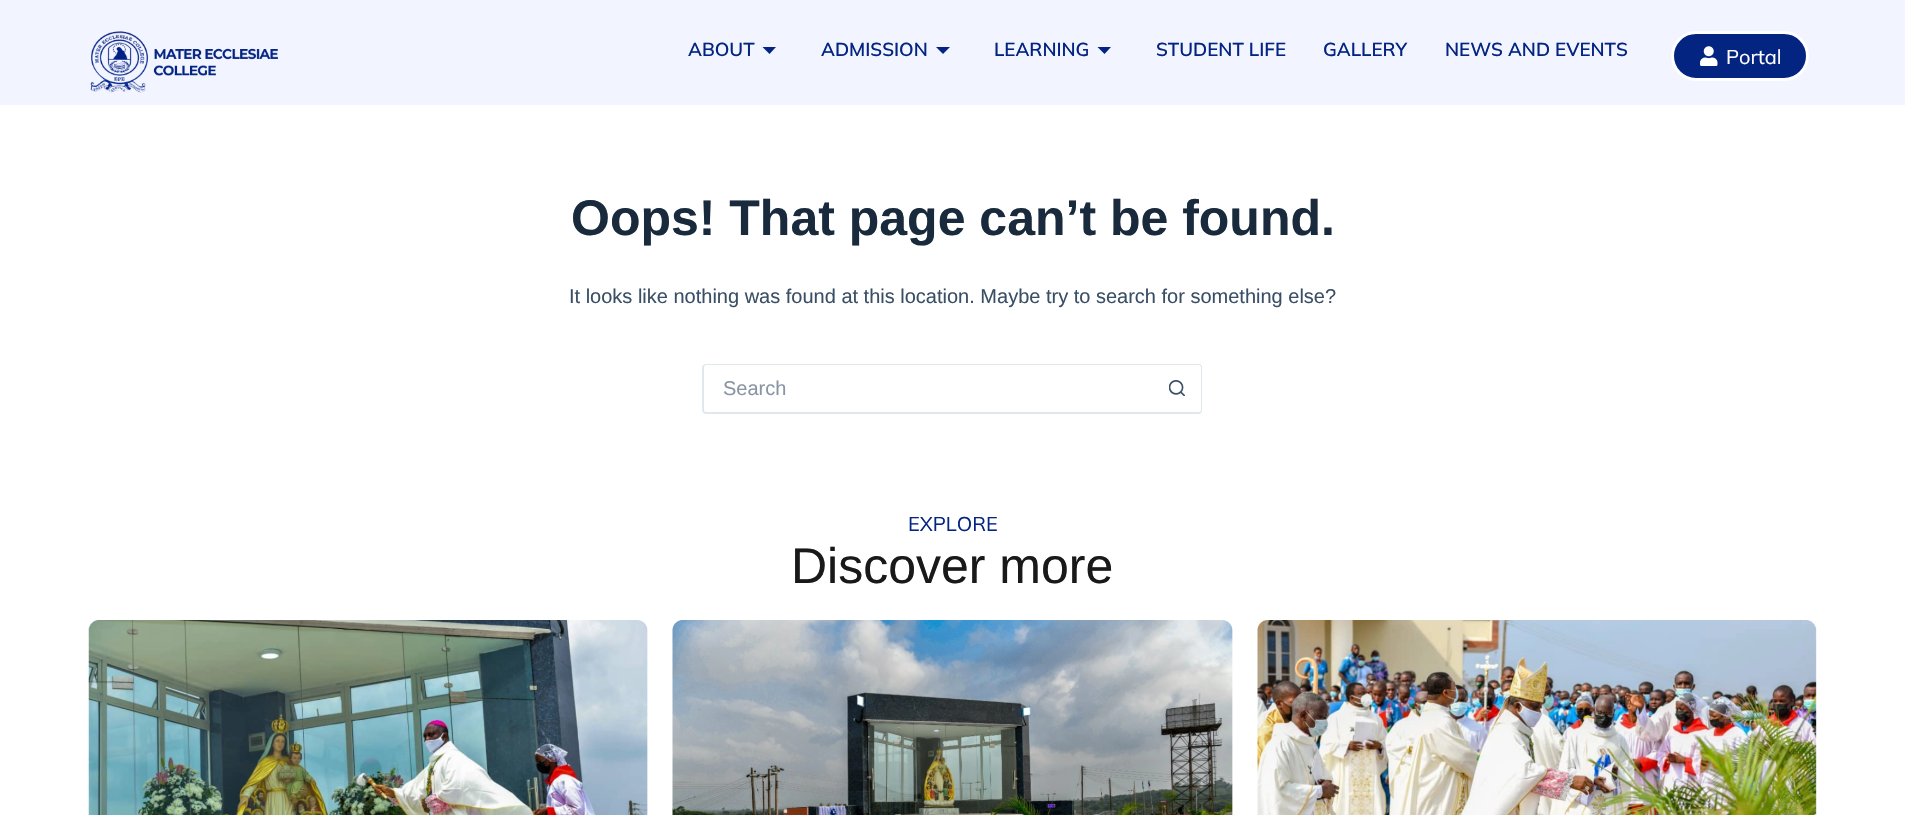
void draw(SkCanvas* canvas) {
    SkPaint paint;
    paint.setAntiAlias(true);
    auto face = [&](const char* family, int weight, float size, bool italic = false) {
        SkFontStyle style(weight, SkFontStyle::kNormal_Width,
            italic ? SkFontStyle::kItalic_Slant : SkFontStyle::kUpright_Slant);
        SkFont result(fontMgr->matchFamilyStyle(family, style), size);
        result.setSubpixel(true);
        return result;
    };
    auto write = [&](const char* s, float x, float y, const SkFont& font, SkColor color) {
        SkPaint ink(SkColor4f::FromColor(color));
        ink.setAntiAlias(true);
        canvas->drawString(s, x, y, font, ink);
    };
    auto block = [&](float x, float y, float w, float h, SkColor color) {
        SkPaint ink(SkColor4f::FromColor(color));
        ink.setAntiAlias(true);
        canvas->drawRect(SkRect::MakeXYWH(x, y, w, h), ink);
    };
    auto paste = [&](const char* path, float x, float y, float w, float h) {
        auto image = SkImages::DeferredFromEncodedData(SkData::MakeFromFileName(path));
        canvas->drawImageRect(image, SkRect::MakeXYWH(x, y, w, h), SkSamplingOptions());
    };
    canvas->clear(SK_ColorWHITE);
    block(0, 0, 1905, 105, SkColorSetRGB(242, 245, 255));
    paste("pic1.png", 90, 31, 188, 62);
    auto kFont1 = face("Mulish", 600, 18.75f);
    write("ABOUT", 688, 56, kFont1, SkColorSetRGB(4, 36, 130));
    paint.setColor(SkColorSetRGB(4, 36, 130));
    canvas->drawPath(SkPathBuilder().moveTo(762.5f, 47).lineTo(776, 47).lineTo(769.5f, 54).close().detach(), paint);
    write("ADMISSION", 821, 56, kFont1, SkColorSetRGB(4, 36, 130));
    canvas->drawPath(SkPathBuilder().moveTo(936, 47).lineTo(950, 47).lineTo(943, 54).close().detach(), paint);
    write("LEARNING", 994, 56, kFont1, SkColorSetRGB(4, 36, 130));
    canvas->drawPath(SkPathBuilder().moveTo(1097.5f, 47).lineTo(1111, 47).lineTo(1104.5f, 54).close().detach(), paint);
    write("STUDENT LIFE", 1156, 56, kFont1, SkColorSetRGB(4, 36, 130));
    write("GALLERY", 1323, 56, kFont1, SkColorSetRGB(4, 36, 130));
    write("NEWS AND EVENTS", 1445, 56, kFont1, SkColorSetRGB(4, 36, 130));
    canvas->drawRoundRect(SkRect::MakeXYWH(1672.5f, 32.5f, 135, 47), 23.5f, 23.5f, paint);
    paint.setStyle(SkPaint::kStroke_Style);
    paint.setStrokeWidth(3);
    paint.setColor(SK_ColorWHITE);
    canvas->drawRoundRect(SkRect::MakeXYWH(1672.5f, 32.5f, 135, 47), 23.5f, 23.5f, paint);
    paste("pic2.png", 1700, 46, 18, 20);
    auto kFont2 = face("Mulish", 400, 20);
    write("Portal", 1726, 64, kFont2, SK_ColorWHITE);
    auto kFont3 = face("Liberation Sans", 700, 50);
    write("Oops! That page can’t be found.", 571, 235, kFont3, SkColorSetRGB(25, 42, 61));
    auto kFont4 = face("Liberation Sans", 400, 20);
    write("It looks like nothing was found at this location. Maybe try to search for something else?", 569, 303, kFont4, SkColorSetRGB(58, 79, 102));
    paint.setStyle(SkPaint::kFill_Style);
    paint.setColor(SkColorSetRGB(225, 232, 237));
    canvas->drawPath(SkPathBuilder(SkPathFillType::kEvenOdd).moveTo(706, 364).lineTo(1152, 364).lineTo(1152, 414).lineTo(706, 414).cubicTo(704, 414, 702, 412, 702, 410).lineTo(702, 368).cubicTo(702, 365, 704, 364, 706, 364).close().moveTo(706, 365).lineTo(1152, 365).lineTo(1152, 412).lineTo(706, 412).cubicTo(705, 412, 704, 411, 704, 410).lineTo(704, 368).cubicTo(704, 366, 705, 365, 706, 365).close().detach(), paint);
    write("Search", 723, 395, kFont4, SkColorSetRGB(137, 149, 163));
    canvas->drawPath(SkPathBuilder(SkPathFillType::kEvenOdd).moveTo(1152, 364).lineTo(1199, 364).cubicTo(1201, 364, 1202, 365, 1202, 368).lineTo(1202, 410).cubicTo(1202, 412, 1201, 414, 1199, 414).lineTo(1152, 414).close().moveTo(1152, 365).lineTo(1199, 365).cubicTo(1200, 365, 1201, 366, 1201, 368).lineTo(1201, 410).cubicTo(1201, 411, 1200, 412, 1199, 412).lineTo(1152, 412).close().detach(), paint);
    paste("pic3.png", 1169, 380, 16, 16);
    write("EXPLORE", 908, 531, kFont2, SkColorSetRGB(4, 36, 130));
    auto kFont5 = face("Liberation Sans", 400, 50);
    write("Discover more", 791, 583, kFont5, SkColorSetRGB(25, 25, 25));
    paste("pic4.png", 88, 620, 560, 195);
    paste("pic5.png", 672, 620, 561, 195);
    paste("pic6.png", 1257, 620, 560, 195);
}
